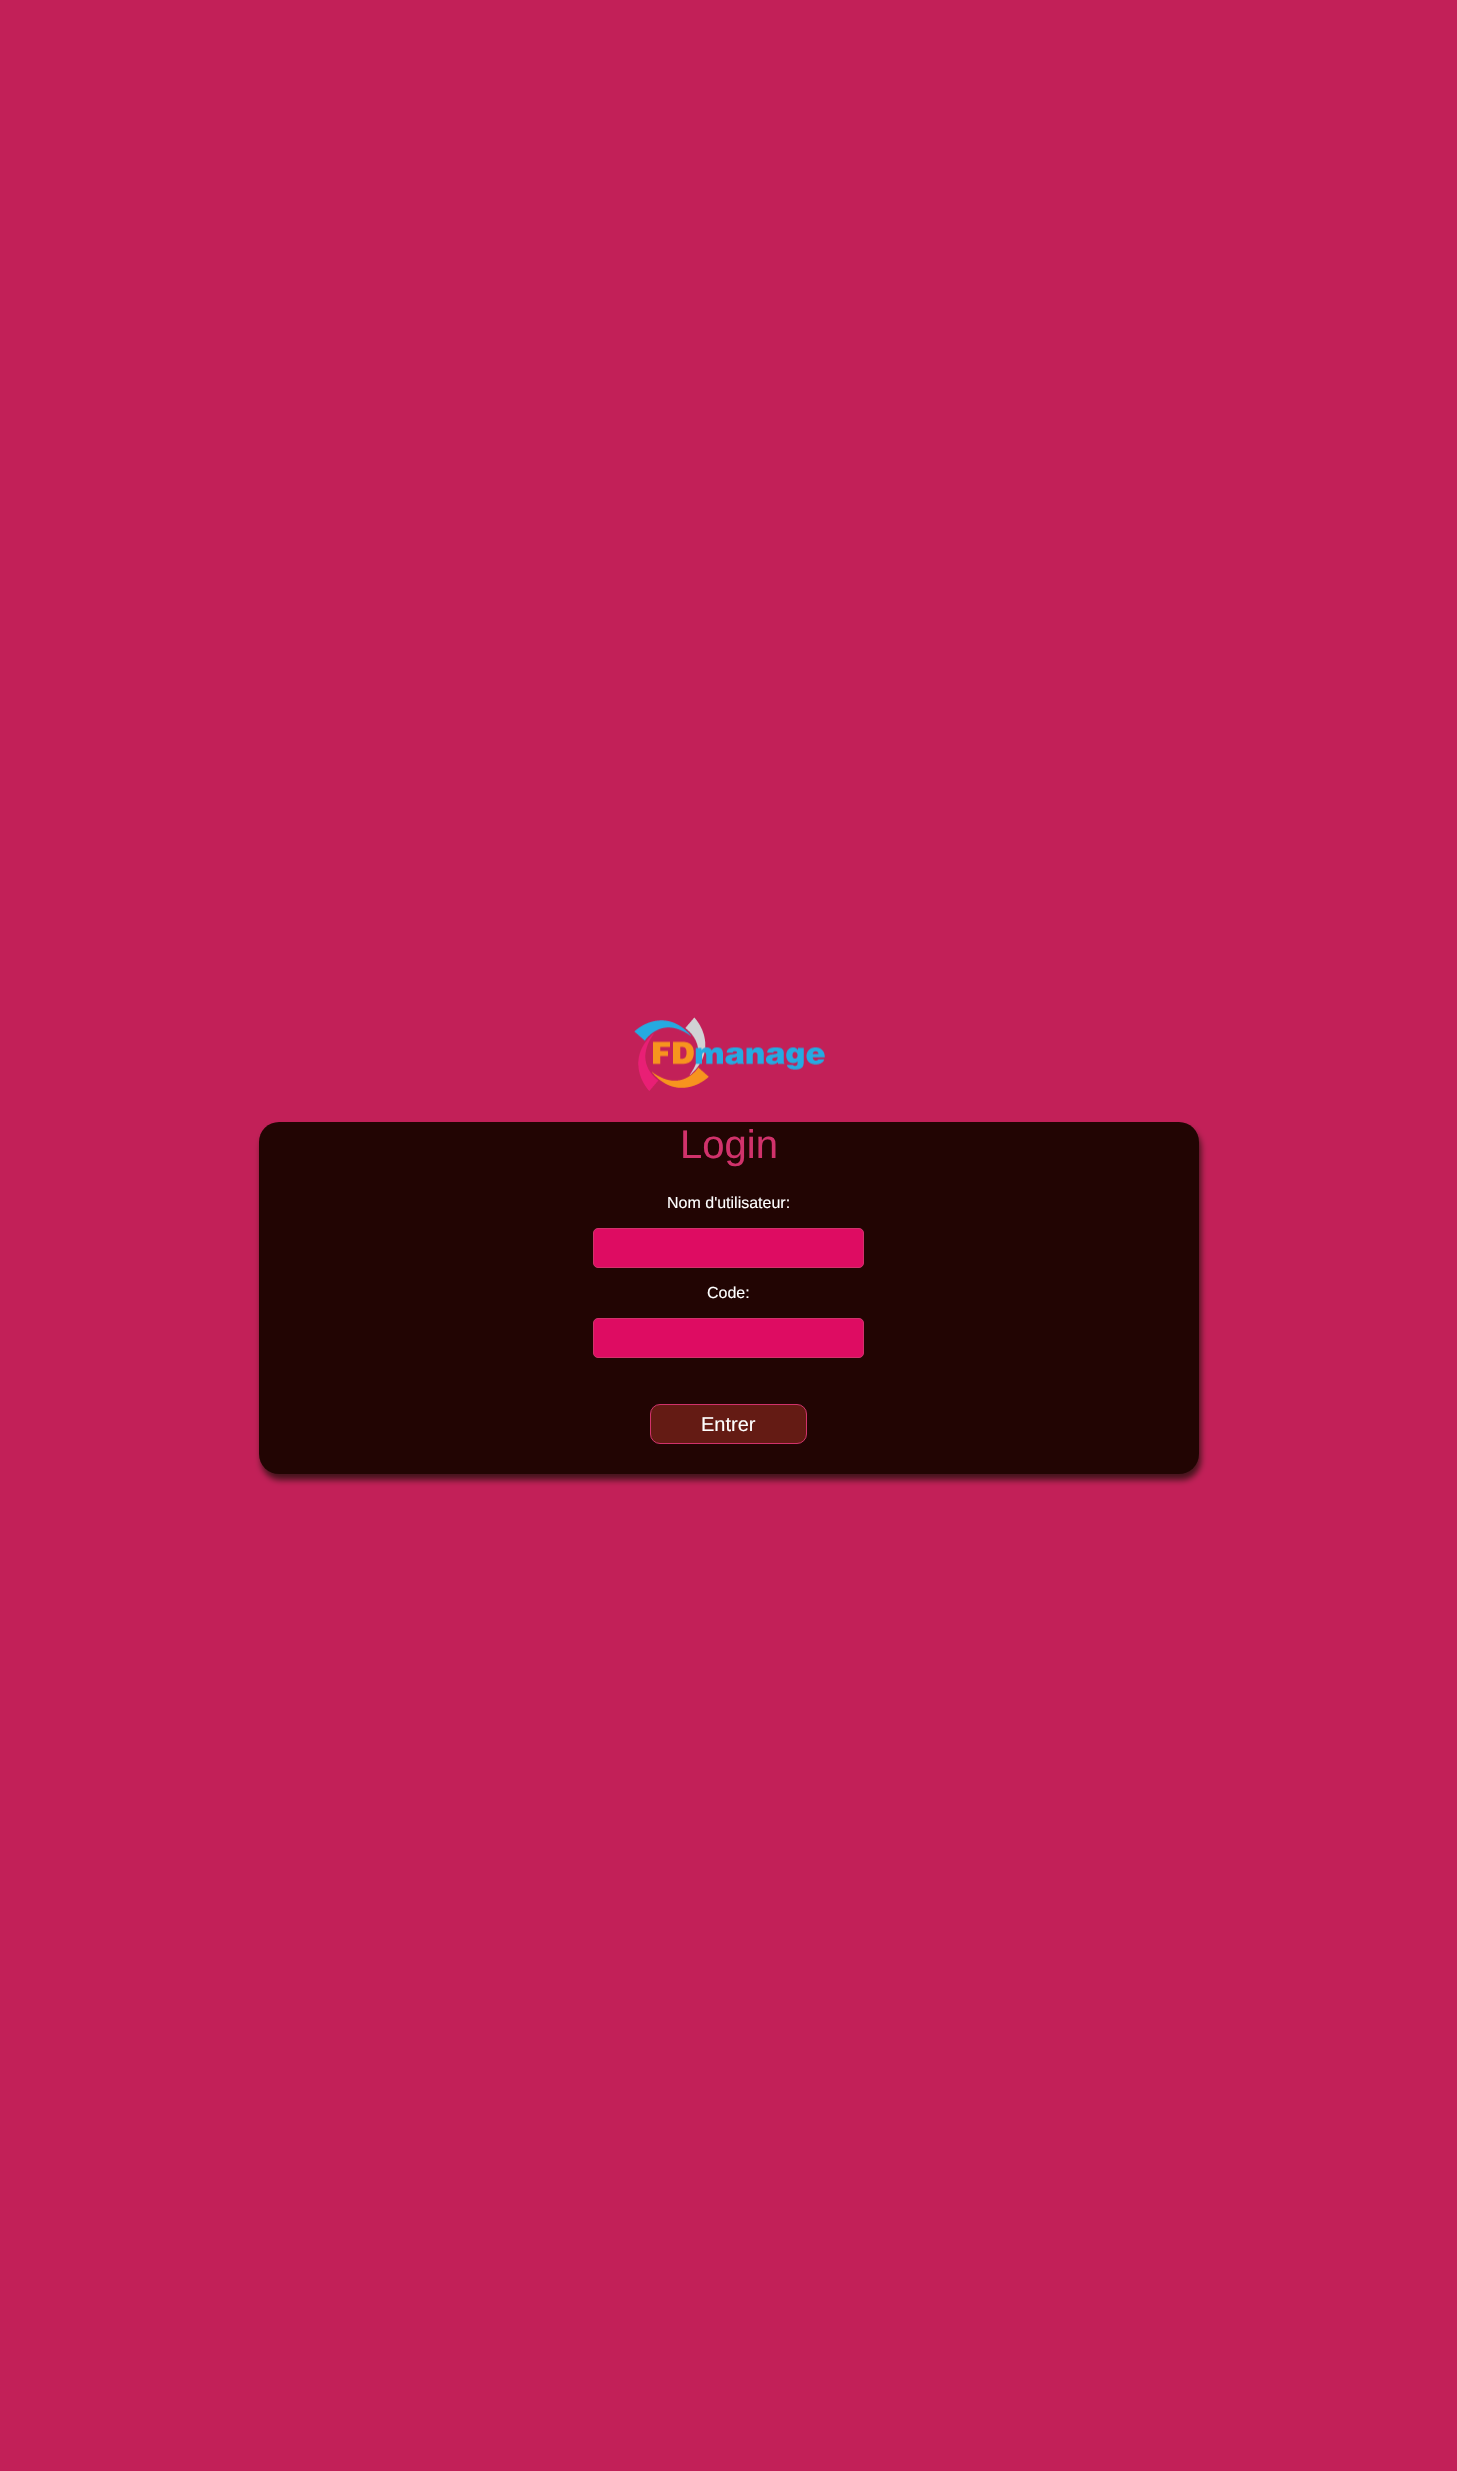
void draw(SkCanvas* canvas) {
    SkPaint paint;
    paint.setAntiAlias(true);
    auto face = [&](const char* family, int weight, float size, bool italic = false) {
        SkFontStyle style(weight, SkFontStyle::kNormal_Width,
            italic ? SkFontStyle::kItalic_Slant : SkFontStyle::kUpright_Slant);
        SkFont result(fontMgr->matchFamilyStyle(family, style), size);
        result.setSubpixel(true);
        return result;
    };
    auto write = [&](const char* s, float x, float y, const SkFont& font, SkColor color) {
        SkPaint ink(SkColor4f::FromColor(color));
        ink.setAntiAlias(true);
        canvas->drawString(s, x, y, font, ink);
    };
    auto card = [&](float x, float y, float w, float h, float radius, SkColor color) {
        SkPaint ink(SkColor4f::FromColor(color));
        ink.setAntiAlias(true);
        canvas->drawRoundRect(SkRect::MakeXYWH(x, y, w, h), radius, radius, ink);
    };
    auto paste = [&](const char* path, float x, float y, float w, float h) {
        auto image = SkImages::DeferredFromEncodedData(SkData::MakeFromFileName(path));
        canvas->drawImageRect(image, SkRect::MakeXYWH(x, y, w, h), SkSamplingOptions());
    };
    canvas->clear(SkColorSetRGB(194, 32, 88));
    paste("pic1.png", 634, 1017, 191, 74);
    paint.setColor(SkColorSetRGB(69, 20, 28));
    paint.setMaskFilter(SkMaskFilter::MakeBlur(kNormal_SkBlurStyle, 3));
    canvas->drawRoundRect(SkRect::MakeXYWH(261, 1128, 940, 352), 20, 20, paint);
    paint.setMaskFilter(nullptr);
    card(259, 1122, 940, 352, 20, SkColorSetRGB(34, 5, 3));
    auto kFont1 = face("Liberation Sans", 400, 40);
    write("Login", 680, 1158, kFont1, SkColorSetRGB(209, 50, 107));
    auto kFont2 = face("Liberation Sans", 400, 16);
    write("Nom d'utilisateur:", 667, 1208, kFont2, SK_ColorWHITE);
    paint.setColor(SkColorSetRGB(222, 12, 98));
    canvas->drawRoundRect(SkRect::MakeXYWH(593.5f, 1228.5f, 270, 39), 4.5f, 4.5f, paint);
    paint.setStyle(SkPaint::kStroke_Style);
    paint.setStrokeWidth(1);
    paint.setColor(SkColorSetRGB(209, 50, 107));
    canvas->drawRoundRect(SkRect::MakeXYWH(593.5f, 1228.5f, 270, 39), 4.5f, 4.5f, paint);
    write("Code:", 707, 1298, kFont2, SK_ColorWHITE);
    paint.setStyle(SkPaint::kFill_Style);
    paint.setColor(SkColorSetRGB(222, 12, 98));
    canvas->drawRoundRect(SkRect::MakeXYWH(593.5f, 1318.5f, 270, 39), 4.5f, 4.5f, paint);
    paint.setStyle(SkPaint::kStroke_Style);
    paint.setColor(SkColorSetRGB(209, 50, 107));
    canvas->drawRoundRect(SkRect::MakeXYWH(593.5f, 1318.5f, 270, 39), 4.5f, 4.5f, paint);
    paint.setStyle(SkPaint::kFill_Style);
    paint.setColor(SkColorSetRGB(100, 27, 20));
    canvas->drawRoundRect(SkRect::MakeXYWH(650.5f, 1404.5f, 156, 39), 9.5f, 9.5f, paint);
    paint.setStyle(SkPaint::kStroke_Style);
    paint.setColor(SkColorSetRGB(209, 50, 107));
    canvas->drawRoundRect(SkRect::MakeXYWH(650.5f, 1404.5f, 156, 39), 9.5f, 9.5f, paint);
    auto kFont3 = face("Liberation Sans", 400, 20);
    write("Entrer", 701, 1431, kFont3, SK_ColorWHITE);
}
